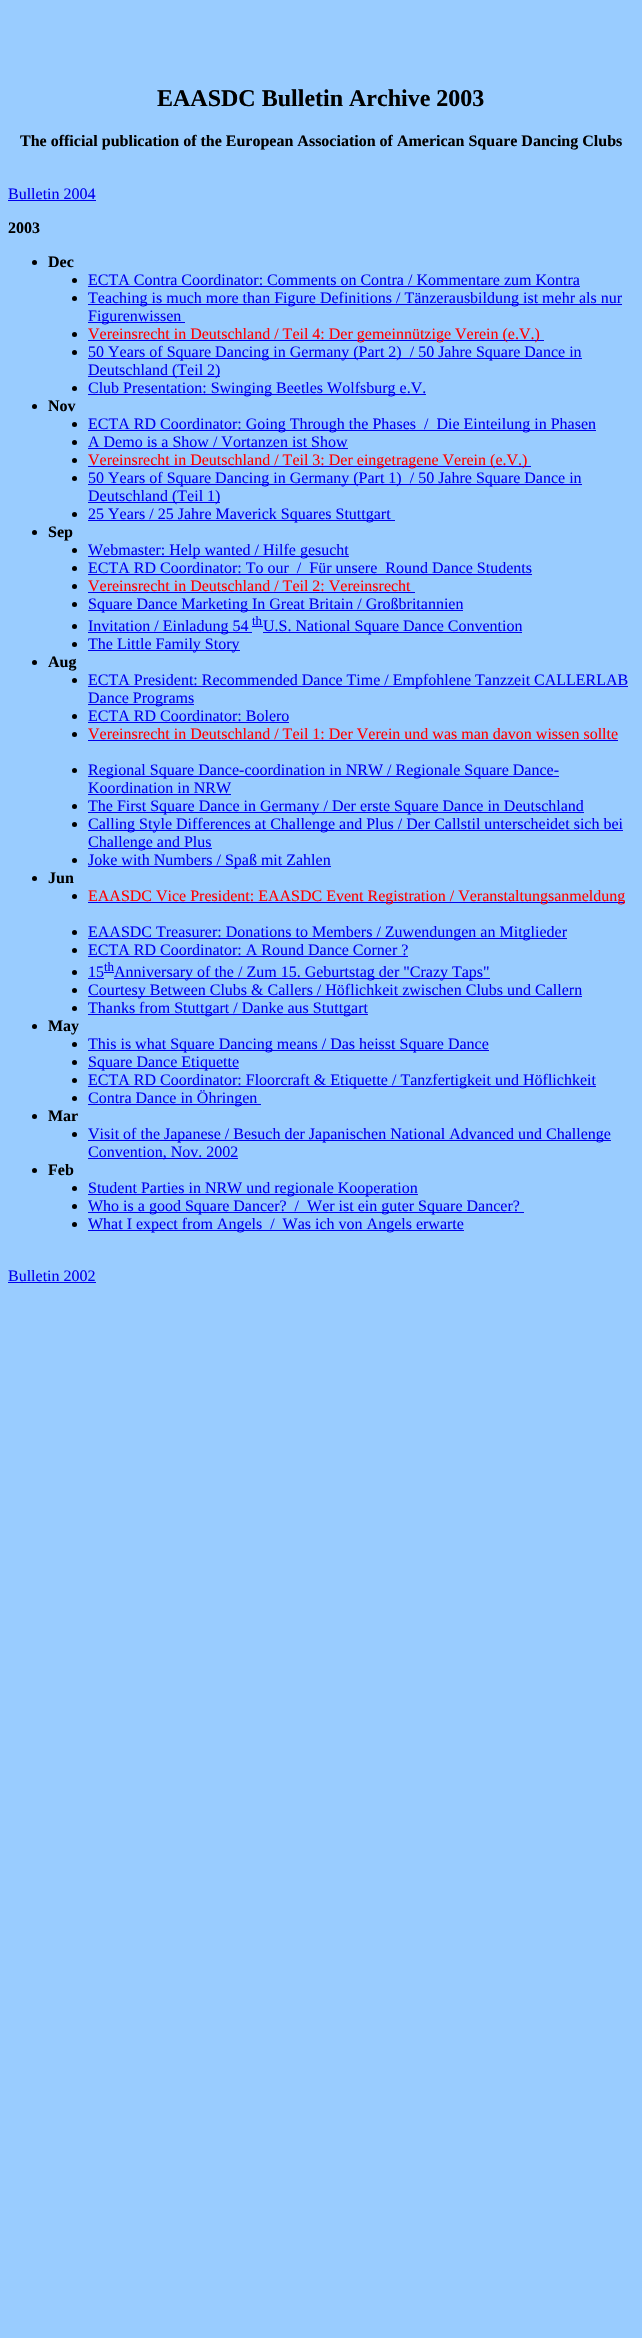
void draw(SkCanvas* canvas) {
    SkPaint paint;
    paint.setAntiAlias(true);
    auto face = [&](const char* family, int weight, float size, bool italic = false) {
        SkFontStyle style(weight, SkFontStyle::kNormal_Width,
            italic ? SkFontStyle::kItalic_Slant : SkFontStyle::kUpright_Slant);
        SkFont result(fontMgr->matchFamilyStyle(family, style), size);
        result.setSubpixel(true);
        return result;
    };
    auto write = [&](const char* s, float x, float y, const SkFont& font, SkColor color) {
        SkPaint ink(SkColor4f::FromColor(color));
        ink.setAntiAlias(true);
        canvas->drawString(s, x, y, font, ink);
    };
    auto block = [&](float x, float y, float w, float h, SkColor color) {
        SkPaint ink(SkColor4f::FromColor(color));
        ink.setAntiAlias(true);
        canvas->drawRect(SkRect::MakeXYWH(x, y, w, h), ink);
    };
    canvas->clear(SkColorSetRGB(153, 204, 255));
    auto kFont1 = face("Liberation Serif", 700, 24);
    write("EAASDC Bulletin Archive 2003", 157, 106, kFont1, SK_ColorBLACK);
    auto kFont2 = face("Liberation Serif", 700, 16);
    write("The official publication of the European Association of American Square Dancing Clubs", 20, 146, kFont2, SK_ColorBLACK);
    auto kFont3 = face("Liberation Serif", 400, 16);
    write("Bulletin 2004", 8, 199, kFont3, SkColorSetRGB(0, 0, 238));
    block(8, 200, 88, 1, SkColorSetRGB(0, 0, 238));
    write("2003", 8, 233, kFont2, SK_ColorBLACK);
    paint.setColor(SK_ColorBLACK);
    canvas->drawCircle(34.5f, 262.5f, 2.5f, paint);
    write("Dec", 48, 267, kFont2, SK_ColorBLACK);
    canvas->drawCircle(74.5f, 280.5f, 2.5f, paint);
    write("ECTA Contra Coordinator: Comments on Contra / Kommentare zum Kontra", 88, 285, kFont3, SkColorSetRGB(0, 0, 238));
    block(88, 286, 492, 1, SkColorSetRGB(0, 0, 238));
    canvas->drawCircle(74.5f, 298.5f, 2.5f, paint);
    block(88, 304, 534, 1, SkColorSetRGB(0, 0, 238));
    write("Teaching is much more than Figure Definitions / Tänzerausbildung ist mehr als nur", 88, 303, kFont3, SkColorSetRGB(0, 0, 238));
    block(88, 322, 97, 1, SkColorSetRGB(0, 0, 238));
    write("Figurenwissen", 88, 321, kFont3, SkColorSetRGB(0, 0, 238));
    canvas->drawCircle(74.5f, 334.5f, 2.5f, paint);
    block(88, 340, 456, 1, SkColorSetRGB(0, 0, 238));
    write("Vereinsrecht in Deutschland / Teil 4: Der gemeinnützige Verein (e.V.)", 88, 339, kFont3, SkColorSetRGB(255, 0, 0));
    canvas->drawCircle(74.5f, 352.5f, 2.5f, paint);
    block(88, 358, 494, 1, SkColorSetRGB(0, 0, 238));
    write("50 Years of Square Dancing in Germany (Part 2)  / 50 Jahre Square Dance in", 88, 357, kFont3, SkColorSetRGB(0, 0, 238));
    block(88, 376, 132, 1, SkColorSetRGB(0, 0, 238));
    write("Deutschland (Teil 2)", 88, 375, kFont3, SkColorSetRGB(0, 0, 238));
    canvas->drawCircle(74.5f, 388.5f, 2.5f, paint);
    block(88, 394, 338, 1, SkColorSetRGB(0, 0, 238));
    write("Club Presentation: Swinging Beetles Wolfsburg e.V.", 88, 393, kFont3, SkColorSetRGB(0, 0, 238));
    canvas->drawCircle(34.5f, 406.5f, 2.5f, paint);
    write("Nov", 48, 411, kFont2, SK_ColorBLACK);
    canvas->drawCircle(74.5f, 424.5f, 2.5f, paint);
    block(88, 430, 508, 1, SkColorSetRGB(0, 0, 238));
    write("ECTA RD Coordinator: Going Through the Phases", 88, 429, kFont3, SkColorSetRGB(0, 0, 238));
    write("/  Die Einteilung in Phasen", 424, 429, kFont3, SkColorSetRGB(0, 0, 238));
    canvas->drawCircle(74.5f, 442.5f, 2.5f, paint);
    write("A Demo is a Show / Vortanzen ist Show", 88, 447, kFont3, SkColorSetRGB(0, 0, 238));
    block(88, 448, 260, 1, SkColorSetRGB(0, 0, 238));
    canvas->drawCircle(74.5f, 460.5f, 2.5f, paint);
    block(88, 466, 443, 1, SkColorSetRGB(0, 0, 238));
    write("Vereinsrecht in Deutschland / Teil 3: Der eingetragene Verein (e.V.)", 88, 465, kFont3, SkColorSetRGB(255, 0, 0));
    canvas->drawCircle(74.5f, 478.5f, 2.5f, paint);
    block(88, 484, 494, 1, SkColorSetRGB(0, 0, 238));
    write("50 Years of Square Dancing in Germany (Part 1)  / 50 Jahre Square Dance in", 88, 483, kFont3, SkColorSetRGB(0, 0, 238));
    block(88, 502, 132, 1, SkColorSetRGB(0, 0, 238));
    write("Deutschland (Teil 1)", 88, 501, kFont3, SkColorSetRGB(0, 0, 238));
    canvas->drawCircle(74.5f, 514.5f, 2.5f, paint);
    block(88, 520, 307, 1, SkColorSetRGB(0, 0, 238));
    write("25 Years / 25 Jahre Maverick Squares Stuttgart", 88, 519, kFont3, SkColorSetRGB(0, 0, 238));
    canvas->drawCircle(34.5f, 532.5f, 2.5f, paint);
    write("Sep", 48, 537, kFont2, SK_ColorBLACK);
    canvas->drawCircle(74.5f, 550.5f, 2.5f, paint);
    block(88, 556, 261, 1, SkColorSetRGB(0, 0, 238));
    write("Webmaster: Help wanted / Hilfe gesucht", 88, 555, kFont3, SkColorSetRGB(0, 0, 238));
    canvas->drawCircle(74.5f, 568.5f, 2.5f, paint);
    write("ECTA RD Coordinator: To our  /  Für unsere  Round Dance Students", 88, 573, kFont3, SkColorSetRGB(0, 0, 238));
    block(88, 574, 444, 1, SkColorSetRGB(0, 0, 238));
    canvas->drawCircle(74.5f, 586.5f, 2.5f, paint);
    write("Vereinsrecht in Deutschland / Teil 2: Vereinsrecht", 88, 591, kFont3, SkColorSetRGB(255, 0, 0));
    block(88, 592, 327, 1, SkColorSetRGB(0, 0, 238));
    canvas->drawCircle(74.5f, 604.5f, 2.5f, paint);
    block(88, 610, 375, 1, SkColorSetRGB(0, 0, 238));
    write("Square Dance Marketing In Great Britain / Großbritannien", 88, 609, kFont3, SkColorSetRGB(0, 0, 238));
    canvas->drawCircle(74.5f, 626.5f, 2.5f, paint);
    block(88, 632, 164, 1, SkColorSetRGB(0, 0, 238));
    write("Invitation / Einladung 54", 88, 631, kFont3, SkColorSetRGB(0, 0, 238));
    auto kFont4 = face("Liberation Serif", 400, 13);
    write("th", 252, 625, kFont4, SkColorSetRGB(0, 0, 238));
    block(252, 626, 11, 1, SkColorSetRGB(0, 0, 238));
    block(263, 632, 259, 1, SkColorSetRGB(0, 0, 238));
    write("U.S. National Square Dance Convention", 263, 631, kFont3, SkColorSetRGB(0, 0, 238));
    canvas->drawCircle(74.5f, 644.5f, 2.5f, paint);
    block(88, 650, 152, 1, SkColorSetRGB(0, 0, 238));
    write("The Little Family Story", 88, 649, kFont3, SkColorSetRGB(0, 0, 238));
    canvas->drawCircle(34.5f, 662.5f, 2.5f, paint);
    write("Aug", 48, 667, kFont2, SK_ColorBLACK);
    canvas->drawCircle(74.5f, 680.5f, 2.5f, paint);
    block(88, 686, 540, 1, SkColorSetRGB(0, 0, 238));
    write("ECTA President: Recommended Dance Time / Empfohlene Tanzzeit CALLERLAB", 88, 685, kFont3, SkColorSetRGB(0, 0, 238));
    block(88, 704, 106, 1, SkColorSetRGB(0, 0, 238));
    write("Dance Programs", 88, 703, kFont3, SkColorSetRGB(0, 0, 238));
    canvas->drawCircle(74.5f, 716.5f, 2.5f, paint);
    write("ECTA RD Coordinator: Bolero", 88, 721, kFont3, SkColorSetRGB(0, 0, 238));
    block(88, 722, 201, 1, SkColorSetRGB(0, 0, 238));
    canvas->drawCircle(74.5f, 734.5f, 2.5f, paint);
    write("Vereinsrecht in Deutschland / Teil 1: Der Verein und was man davon wissen sollte", 88, 739, kFont3, SkColorSetRGB(255, 0, 0));
    block(88, 740, 530, 1, SkColorSetRGB(0, 0, 238));
    canvas->drawCircle(74.5f, 770.5f, 2.5f, paint);
    block(88, 776, 471, 1, SkColorSetRGB(0, 0, 238));
    write("Regional Square Dance-coordination in NRW / Regionale Square Dance-", 88, 775, kFont3, SkColorSetRGB(0, 0, 238));
    write("Koordination in NRW", 88, 793, kFont3, SkColorSetRGB(0, 0, 238));
    block(88, 794, 143, 1, SkColorSetRGB(0, 0, 238));
    canvas->drawCircle(74.5f, 806.5f, 2.5f, paint);
    block(88, 812, 496, 1, SkColorSetRGB(0, 0, 238));
    write("The First Square Dance in Germany / Der erste Square Dance in Deutschland", 88, 811, kFont3, SkColorSetRGB(0, 0, 238));
    canvas->drawCircle(74.5f, 824.5f, 2.5f, paint);
    block(88, 830, 535, 1, SkColorSetRGB(0, 0, 238));
    write("Calling Style Differences at Challenge and Plus / Der Callstil unterscheidet sich bei", 88, 829, kFont3, SkColorSetRGB(0, 0, 238));
    block(88, 848, 124, 1, SkColorSetRGB(0, 0, 238));
    write("Challenge and Plus", 88, 847, kFont3, SkColorSetRGB(0, 0, 238));
    canvas->drawCircle(74.5f, 860.5f, 2.5f, paint);
    block(88, 866, 243, 1, SkColorSetRGB(0, 0, 238));
    write("Joke with Numbers / Spaß mit Zahlen", 88, 865, kFont3, SkColorSetRGB(0, 0, 238));
    canvas->drawCircle(34.5f, 878.5f, 2.5f, paint);
    write("Jun", 48, 883, kFont2, SK_ColorBLACK);
    canvas->drawCircle(74.5f, 896.5f, 2.5f, paint);
    block(88, 902, 537, 1, SkColorSetRGB(0, 0, 238));
    write("EAASDC Vice President: EAASDC Event Registration / Veranstaltungsanmeldung", 88, 901, kFont3, SkColorSetRGB(255, 0, 0));
    canvas->drawCircle(74.5f, 932.5f, 2.5f, paint);
    block(88, 938, 479, 1, SkColorSetRGB(0, 0, 238));
    write("EAASDC Treasurer: Donations to Members / Zuwendungen an Mitglieder", 88, 937, kFont3, SkColorSetRGB(0, 0, 238));
    canvas->drawCircle(74.5f, 950.5f, 2.5f, paint);
    write("ECTA RD Coordinator: A Round Dance Corner ?", 88, 955, kFont3, SkColorSetRGB(0, 0, 238));
    block(88, 956, 320, 1, SkColorSetRGB(0, 0, 238));
    canvas->drawCircle(74.5f, 972.5f, 2.5f, paint);
    write("15", 88, 977, kFont3, SkColorSetRGB(0, 0, 238));
    block(88, 978, 16, 1, SkColorSetRGB(0, 0, 238));
    write("th", 104, 971, kFont4, SkColorSetRGB(0, 0, 238));
    block(104, 972, 10, 1, SkColorSetRGB(0, 0, 238));
    block(114, 978, 376, 1, SkColorSetRGB(0, 0, 238));
    write("Anniversary of the / Zum 15. Geburtstag der \"Crazy Taps\"", 114, 977, kFont3, SkColorSetRGB(0, 0, 238));
    canvas->drawCircle(74.5f, 990.5f, 2.5f, paint);
    block(88, 996, 494, 1, SkColorSetRGB(0, 0, 238));
    write("Courtesy Between Clubs & Callers / Höflichkeit zwischen Clubs und Callern", 88, 995, kFont3, SkColorSetRGB(0, 0, 238));
    canvas->drawCircle(74.5f, 1008.5f, 2.5f, paint);
    block(88, 1014, 280, 1, SkColorSetRGB(0, 0, 238));
    write("Thanks from Stuttgart / Danke aus Stuttgart", 88, 1013, kFont3, SkColorSetRGB(0, 0, 238));
    canvas->drawCircle(34.5f, 1026.5f, 2.5f, paint);
    write("May", 48, 1031, kFont2, SK_ColorBLACK);
    canvas->drawCircle(74.5f, 1044.5f, 2.5f, paint);
    block(88, 1050, 401, 1, SkColorSetRGB(0, 0, 238));
    write("This is what Square Dancing means / Das heisst Square Dance", 88, 1049, kFont3, SkColorSetRGB(0, 0, 238));
    canvas->drawCircle(74.5f, 1062.5f, 2.5f, paint);
    block(88, 1068, 151, 1, SkColorSetRGB(0, 0, 238));
    write("Square Dance Etiquette", 88, 1067, kFont3, SkColorSetRGB(0, 0, 238));
    canvas->drawCircle(74.5f, 1080.5f, 2.5f, paint);
    block(88, 1086, 508, 1, SkColorSetRGB(0, 0, 238));
    write("ECTA RD Coordinator: Floorcraft & Etiquette / Tanzfertigkeit und Höflichkeit", 88, 1085, kFont3, SkColorSetRGB(0, 0, 238));
    canvas->drawCircle(74.5f, 1098.5f, 2.5f, paint);
    block(88, 1104, 173, 1, SkColorSetRGB(0, 0, 238));
    write("Contra Dance in Öhringen", 88, 1103, kFont3, SkColorSetRGB(0, 0, 238));
    canvas->drawCircle(34.5f, 1116.5f, 2.5f, paint);
    write("Mar", 48, 1121, kFont2, SK_ColorBLACK);
    canvas->drawCircle(74.5f, 1134.5f, 2.5f, paint);
    block(88, 1140, 523, 1, SkColorSetRGB(0, 0, 238));
    write("Visit of the Japanese / Besuch der Japanischen National Advanced und Challenge", 88, 1139, kFont3, SkColorSetRGB(0, 0, 238));
    block(88, 1158, 150, 1, SkColorSetRGB(0, 0, 238));
    write("Convention, Nov. 2002", 88, 1157, kFont3, SkColorSetRGB(0, 0, 238));
    canvas->drawCircle(34.5f, 1170.5f, 2.5f, paint);
    write("Feb", 48, 1175, kFont2, SK_ColorBLACK);
    canvas->drawCircle(74.5f, 1188.5f, 2.5f, paint);
    block(88, 1194, 330, 1, SkColorSetRGB(0, 0, 238));
    write("Student Parties in NRW und regionale Kooperation", 88, 1193, kFont3, SkColorSetRGB(0, 0, 238));
    canvas->drawCircle(74.5f, 1206.5f, 2.5f, paint);
    block(88, 1212, 436, 1, SkColorSetRGB(0, 0, 238));
    write("Who is a good Square Dancer?  /  Wer ist ein guter Square Dancer?", 88, 1211, kFont3, SkColorSetRGB(0, 0, 238));
    canvas->drawCircle(74.5f, 1224.5f, 2.5f, paint);
    block(88, 1230, 376, 1, SkColorSetRGB(0, 0, 238));
    write("What I expect from Angels  /  Was ich von Angels erwarte", 88, 1229, kFont3, SkColorSetRGB(0, 0, 238));
    write("Bulletin 2002", 8, 1281, kFont3, SkColorSetRGB(0, 0, 238));
    block(8, 1282, 88, 1, SkColorSetRGB(0, 0, 238));
}
